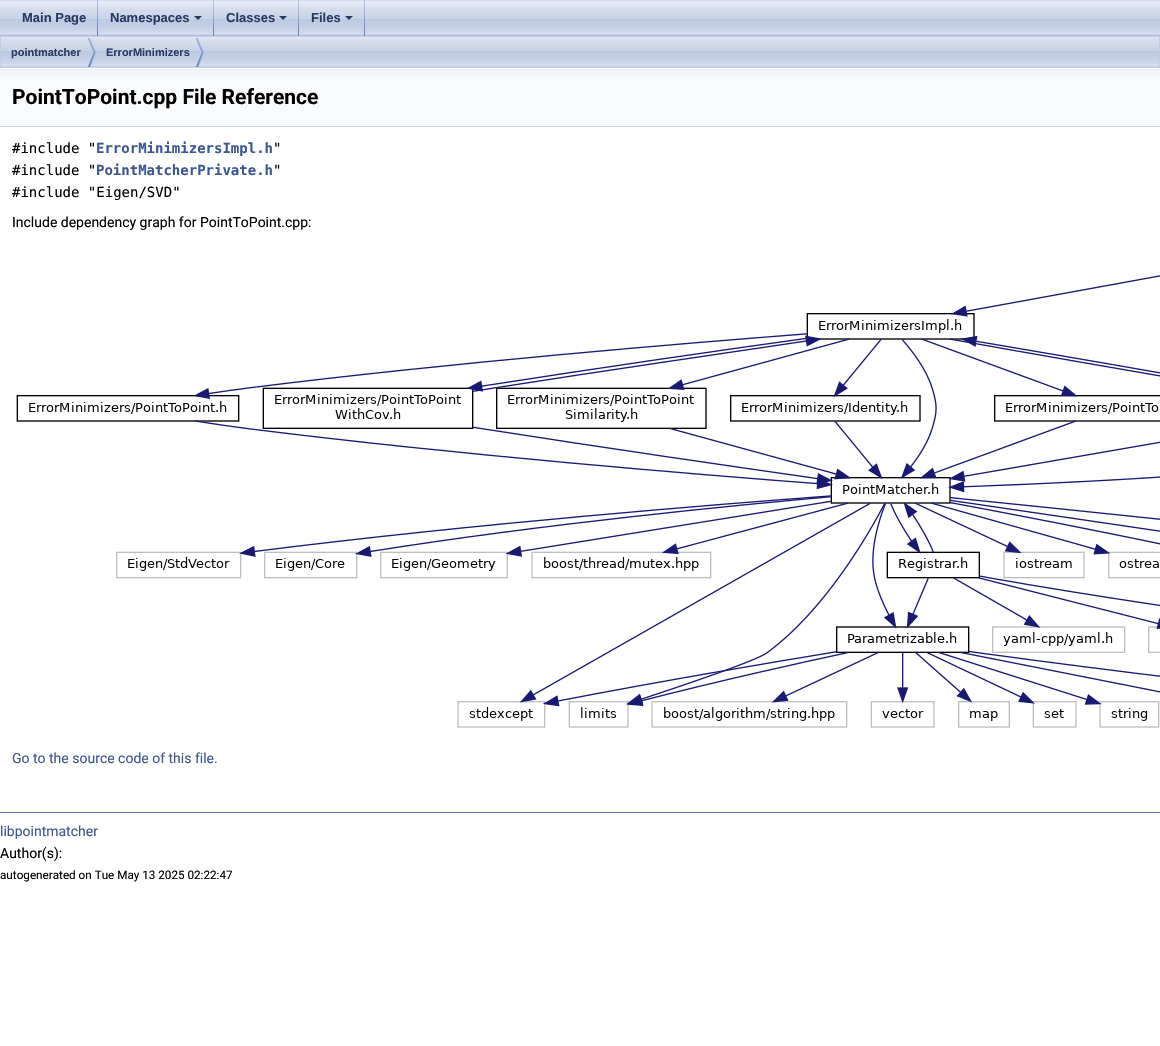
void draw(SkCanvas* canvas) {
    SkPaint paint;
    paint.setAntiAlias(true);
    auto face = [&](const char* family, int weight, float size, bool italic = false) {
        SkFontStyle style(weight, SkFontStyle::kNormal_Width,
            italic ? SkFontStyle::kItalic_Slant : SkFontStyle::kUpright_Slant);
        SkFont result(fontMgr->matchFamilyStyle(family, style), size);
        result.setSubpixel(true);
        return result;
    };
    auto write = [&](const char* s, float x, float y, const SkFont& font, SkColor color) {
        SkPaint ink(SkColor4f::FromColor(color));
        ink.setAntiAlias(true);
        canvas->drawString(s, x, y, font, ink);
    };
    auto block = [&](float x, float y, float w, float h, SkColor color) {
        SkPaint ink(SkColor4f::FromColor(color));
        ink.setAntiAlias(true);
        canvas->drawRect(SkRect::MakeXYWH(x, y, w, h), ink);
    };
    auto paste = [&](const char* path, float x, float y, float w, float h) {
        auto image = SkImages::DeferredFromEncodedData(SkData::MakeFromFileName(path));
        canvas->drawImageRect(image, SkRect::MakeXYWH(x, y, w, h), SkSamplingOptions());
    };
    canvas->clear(SK_ColorWHITE);
    paste("pic1.png", 0, 0, 1160, 36);
    paste("pic2.png", 97, 0, 1, 36);
    auto kFont1 = face("Liberation Sans", 700, 13);
    write("Main Page", 22, 22, kFont1, SkColorSetRGB(40, 58, 93));
    paste("pic2.png", 213, 0, 1, 36);
    write("Namespaces", 110, 22, kFont1, SkColorSetRGB(40, 58, 93));
    paint.setColor(SkColorSetRGB(40, 58, 93));
    canvas->drawPath(SkPathBuilder().moveTo(194, 16).lineTo(202, 16).lineTo(198, 20).close().detach(), paint);
    paste("pic2.png", 298, 0, 1, 36);
    write("Classes", 226, 22, kFont1, SkColorSetRGB(40, 58, 93));
    canvas->drawPath(SkPathBuilder().moveTo(279, 16).lineTo(287, 16).lineTo(283, 20).close().detach(), paint);
    paste("pic2.png", 364, 0, 1, 36);
    write("Files", 311, 22, kFont1, SkColorSetRGB(40, 58, 93));
    canvas->drawPath(SkPathBuilder().moveTo(345, 16).lineTo(353, 16).lineTo(349, 20).close().detach(), paint);
    paste("pic3.png", 1, 37, 1158, 30);
    paint.setStyle(SkPaint::kStroke_Style);
    paint.setStrokeWidth(1);
    paint.setColor(SkColorSetRGB(194, 205, 228));
    canvas->drawRect(SkRect::MakeXYWH(0.5f, 36.5f, 1159, 31), paint);
    paste("pic4.png", 88, 38, 8, 29);
    auto kFont2 = face("Liberation Sans", 700, 11);
    write("pointmatcher", 11, 56, kFont2, SkColorSetRGB(40, 58, 93));
    paste("pic4.png", 196, 38, 8, 29);
    write("ErrorMinimizers", 106, 56, kFont2, SkColorSetRGB(40, 58, 93));
    block(0, 76, 1160, 50, SkColorSetRGB(249, 250, 252));
    paste("pic5.png", 0, 68, 1160, 8);
    block(0, 126, 1160, 1, SkColorSetRGB(196, 207, 229));
    auto kFont3 = face("Roboto", 700, 21);
    write("PointToPoint.cpp File Reference", 12, 104, kFont3, SK_ColorBLACK);
    auto kFont4 = face("DejaVu Sans Mono", 400, 14);
    write("#include \"", 12, 153, kFont4, SK_ColorBLACK);
    auto kFont5 = face("DejaVu Sans Mono", 700, 14);
    write("ErrorMinimizersImpl.h", 96, 153, kFont5, SkColorSetRGB(61, 87, 140));
    write("\"", 273, 153, kFont4, SK_ColorBLACK);
    write("#include \"", 12, 175, kFont4, SK_ColorBLACK);
    write("PointMatcherPrivate.h", 96, 175, kFont5, SkColorSetRGB(61, 87, 140));
    write("\"", 273, 175, kFont4, SK_ColorBLACK);
    write("#include \"Eigen/SVD\"", 12, 197, kFont4, SK_ColorBLACK);
    auto kFont6 = face("Roboto", 400, 14);
    write("Include dependency graph for PointToPoint.cpp:", 12, 227, kFont6, SK_ColorBLACK);
    paste("pic6.png", 16, 275, 1144, 453);
    write("Go to the source code of this file.", 12, 763, kFont6, SkColorSetRGB(61, 87, 140));
    block(0, 812, 1160, 1, SkColorSetRGB(74, 106, 170));
    write("libpointmatcher", 0, 836, kFont6, SkColorSetRGB(61, 87, 140));
    write("Author(s):", 0, 858, kFont6, SK_ColorBLACK);
    auto kFont7 = face("Roboto", 400, 11.7f);
    write("autogenerated on Tue May 13 2025 02:22:47", 0, 879, kFont7, SK_ColorBLACK);
}
